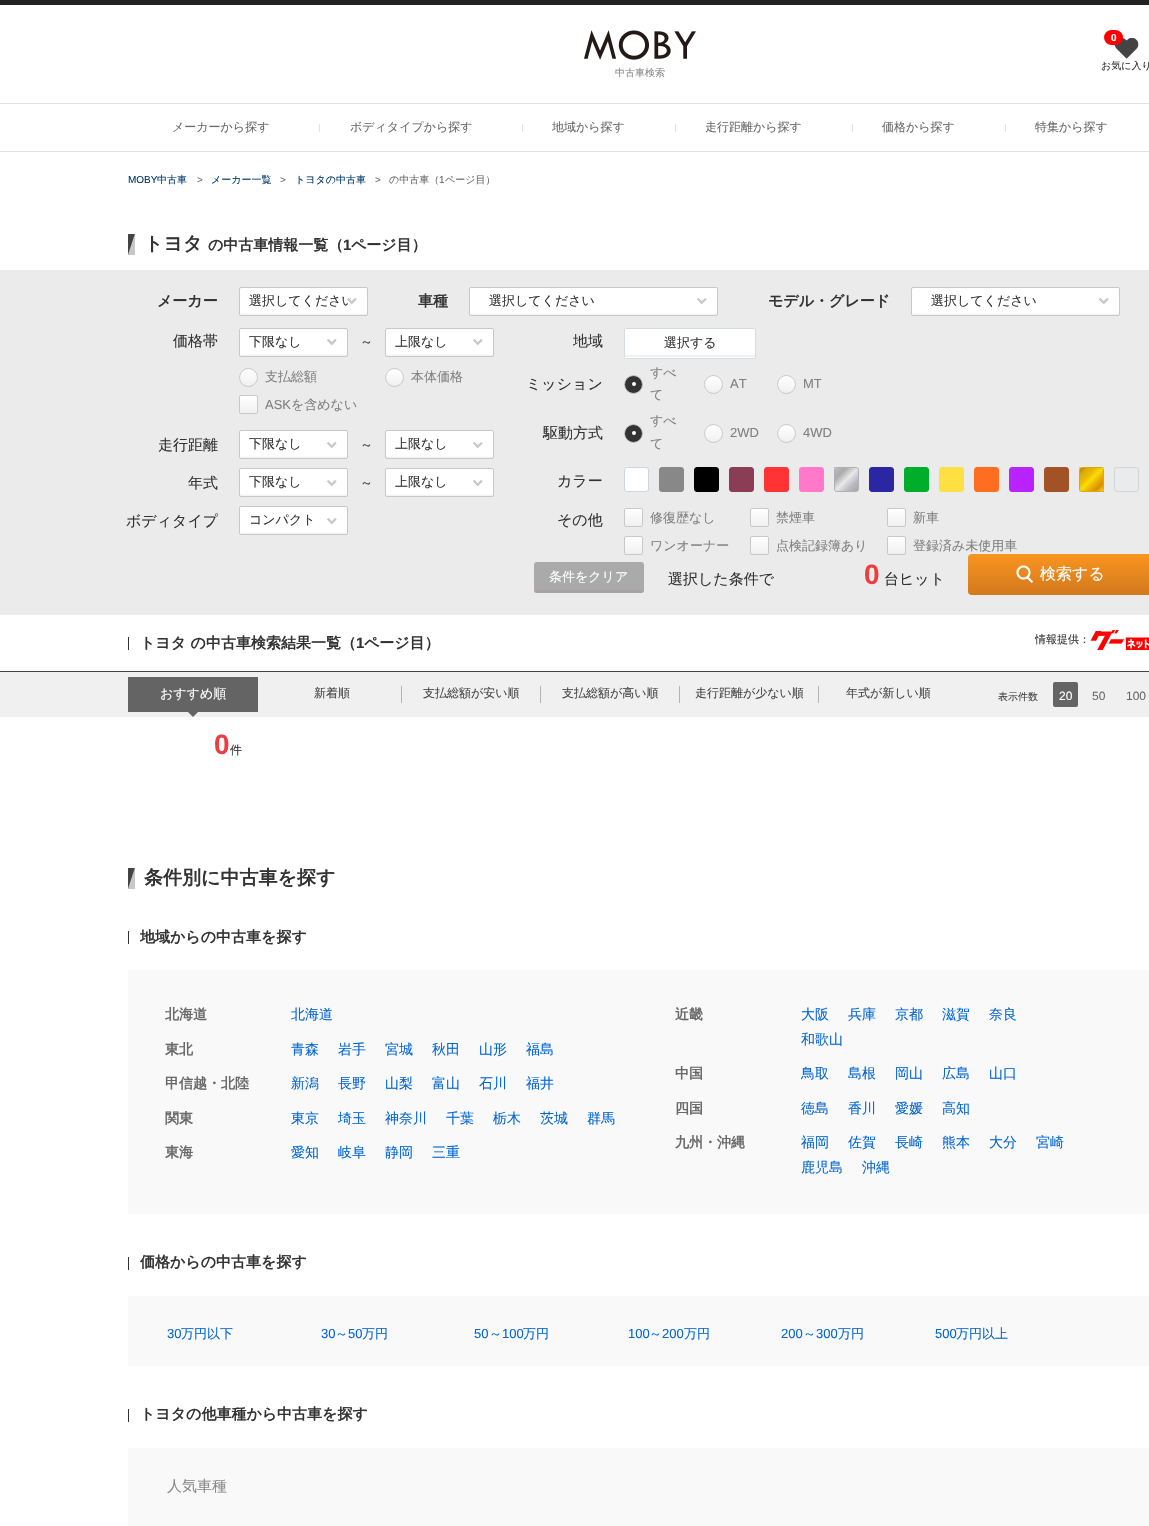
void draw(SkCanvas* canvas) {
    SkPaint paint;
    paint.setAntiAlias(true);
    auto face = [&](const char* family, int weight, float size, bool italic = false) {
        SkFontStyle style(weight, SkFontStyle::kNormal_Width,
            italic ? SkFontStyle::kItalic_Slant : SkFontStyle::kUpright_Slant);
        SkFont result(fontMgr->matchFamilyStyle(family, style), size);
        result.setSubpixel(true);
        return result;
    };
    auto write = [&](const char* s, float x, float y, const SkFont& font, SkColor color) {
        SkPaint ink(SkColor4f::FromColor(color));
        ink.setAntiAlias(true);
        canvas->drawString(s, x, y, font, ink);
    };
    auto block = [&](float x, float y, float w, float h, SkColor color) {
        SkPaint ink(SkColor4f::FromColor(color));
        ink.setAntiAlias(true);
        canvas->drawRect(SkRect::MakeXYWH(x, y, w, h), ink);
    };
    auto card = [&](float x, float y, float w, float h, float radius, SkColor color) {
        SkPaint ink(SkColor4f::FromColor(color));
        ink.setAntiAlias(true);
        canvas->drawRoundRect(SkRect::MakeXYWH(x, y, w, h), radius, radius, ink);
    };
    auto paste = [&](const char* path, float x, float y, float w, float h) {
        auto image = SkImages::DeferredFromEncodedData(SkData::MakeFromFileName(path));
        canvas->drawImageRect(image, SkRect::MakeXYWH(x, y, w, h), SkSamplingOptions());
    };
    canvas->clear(SK_ColorWHITE);
    block(0, 0, 1149, 5, SkColorSetRGB(34, 34, 34));
    block(0, 103, 1149, 1, SkColorSetRGB(225, 225, 225));
    paste("pic1.png", 1114, 38, 25, 21);
    card(1104, 30, 19, 15, 7.5f, SkColorSetRGB(255, 0, 0));
    auto kFont1 = face("Liberation Sans", 700, 10);
    write("0", 1111, 41, kFont1, SK_ColorWHITE);
    auto kFont2 = face("WenQuanYi Zen Hei", 500, 10);
    write("お気に入り", 1101, 69, kFont2, SkColorSetRGB(51, 51, 51));
    paste("pic2.png", 584, 30, 112, 30);
    write("中古車検索", 615, 76, kFont2, SkColorSetRGB(136, 136, 136));
    block(0, 151, 1149, 1, SkColorSetRGB(225, 225, 225));
    auto kFont3 = face("WenQuanYi Zen Hei", 500, 12);
    write("メーカーから探す", 172, 131, kFont3, SkColorSetRGB(105, 105, 105));
    block(319, 124, 1, 8, SkColorSetRGB(225, 225, 225));
    write("ボディタイプから探す", 350, 131, kFont3, SkColorSetRGB(105, 105, 105));
    block(522, 124, 1, 8, SkColorSetRGB(225, 225, 225));
    write("地域から探す", 552, 131, kFont3, SkColorSetRGB(105, 105, 105));
    block(675, 124, 1, 8, SkColorSetRGB(225, 225, 225));
    write("走行距離から探す", 705, 131, kFont3, SkColorSetRGB(105, 105, 105));
    block(852, 124, 1, 8, SkColorSetRGB(225, 225, 225));
    write("価格から探す", 882, 131, kFont3, SkColorSetRGB(105, 105, 105));
    block(1005, 124, 1, 8, SkColorSetRGB(225, 225, 225));
    write("特集から探す", 1035, 131, kFont3, SkColorSetRGB(105, 105, 105));
    auto kFont4 = face("Liberation Sans", 400, 10);
    write("MOBY", 128, 183, kFont4, SkColorSetRGB(0, 58, 107));
    write("中古車", 157, 183, kFont2, SkColorSetRGB(0, 58, 107));
    write(">", 197, 183, kFont4, SkColorSetRGB(105, 105, 105));
    write("メーカー一覧", 211, 183, kFont2, SkColorSetRGB(0, 58, 107));
    write(">", 280, 183, kFont4, SkColorSetRGB(105, 105, 105));
    write("トヨタの中古車", 295, 183, kFont2, SkColorSetRGB(0, 58, 107));
    write(">", 375, 183, kFont4, SkColorSetRGB(105, 105, 105));
    write("の中古車（", 389, 183, kFont2, SkColorSetRGB(105, 105, 105));
    write("1", 439, 183, kFont4, SkColorSetRGB(105, 105, 105));
    write("ページ目）", 445, 183, kFont2, SkColorSetRGB(105, 105, 105));
    paste("pic3.png", 128, 234, 7, 21);
    auto kFont5 = face("WenQuanYi Zen Hei", 700, 19);
    write("トヨタ", 144, 250, kFont5, SkColorSetRGB(51, 51, 51));
    auto kFont6 = face("WenQuanYi Zen Hei", 700, 15);
    write("の中古車情報一覧（", 208, 250, kFont6, SkColorSetRGB(51, 51, 51));
    auto kFont7 = face("Liberation Sans", 700, 15);
    write("1", 343, 250, kFont7, SkColorSetRGB(51, 51, 51));
    write("ページ目）", 351, 250, kFont6, SkColorSetRGB(51, 51, 51));
    block(0, 270, 1149, 345, SkColorSetRGB(235, 235, 235));
    write("メーカー", 157, 306, kFont6, SkColorSetRGB(51, 51, 51));
    paste("pic4.png", 239, 288, 129, 27);
    paint.setStyle(SkPaint::kStroke_Style);
    paint.setStrokeWidth(1);
    paint.setColor(SkColorSetRGB(200, 200, 200));
    canvas->drawRoundRect(SkRect::MakeXYWH(239.5f, 287.5f, 128, 28), 1.5f, 1.5f, paint);
    canvas->save();
    canvas->clipRect(SkRect::MakeXYWH(249, 294, 102, 14));
    auto kFont8 = face("WenQuanYi Zen Hei", 500, 13);
    write("選択してください", 249, 305, kFont8, SkColorSetRGB(51, 51, 51));
    canvas->restore();
    write("車種", 418, 306, kFont6, SkColorSetRGB(51, 51, 51));
    paste("pic5.png", 469, 288, 249, 27);
    canvas->drawRoundRect(SkRect::MakeXYWH(469.5f, 287.5f, 248, 28), 1.5f, 1.5f, paint);
    write("選択してください", 489, 305, kFont8, SkColorSetRGB(51, 51, 51));
    write("モデル・グレード", 768, 306, kFont6, SkColorSetRGB(51, 51, 51));
    paste("pic6.png", 911, 288, 209, 27);
    canvas->drawRoundRect(SkRect::MakeXYWH(911.5f, 287.5f, 208, 28), 1.5f, 1.5f, paint);
    write("選択してください", 931, 305, kFont8, SkColorSetRGB(51, 51, 51));
    auto kFont9 = face("WenQuanYi Zen Hei", 500, 15);
    write("価格帯", 173, 346, kFont9, SkColorSetRGB(51, 51, 51));
    paste("pic7.png", 239, 329, 109, 27);
    canvas->drawRoundRect(SkRect::MakeXYWH(239.5f, 328.5f, 108, 28), 1.5f, 1.5f, paint);
    write("下限なし", 249, 346, kFont8, SkColorSetRGB(51, 51, 51));
    write("～", 360, 346, kFont8, SkColorSetRGB(51, 51, 51));
    paste("pic7.png", 385, 329, 109, 27);
    canvas->drawRoundRect(SkRect::MakeXYWH(385.5f, 328.5f, 108, 28), 1.5f, 1.5f, paint);
    write("上限なし", 395, 346, kFont8, SkColorSetRGB(51, 51, 51));
    canvas->save();
    canvas->clipPath(SkPathBuilder().moveTo(248.5f, 368).cubicTo(253.5f, 368, 258, 372.5f, 258, 377.5f).cubicTo(258, 382.5f, 253.5f, 387, 248.5f, 387).cubicTo(243.5f, 387, 239, 382.5f, 239, 377.5f).cubicTo(239, 372.5f, 243.5f, 368, 248.5f, 368).close().detach(), true);
    paint.setStyle(SkPaint::kFill_Style);
    {
        const SkColor colors[] = {SK_ColorWHITE, SkColorSetRGB(240, 240, 240)};
        const float stops[] = {0, 1};
        const SkPoint ends[] = {{249, 369}, {249, 386}};
        paint.setShader(SkGradientShader::MakeLinear(ends, colors, stops, 2, SkTileMode::kClamp));
        paint.setAlpha(255);
    }
    canvas->drawRect(SkRect::MakeXYWH(239, 369, 19, 17), paint);
    canvas->restore();
    paint.setStyle(SkPaint::kStroke_Style);
    paint.setShader(nullptr);
    paint.setColor(SkColorSetRGB(200, 200, 200));
    canvas->drawCircle(248.5f, 377.5f, 9, paint);
    write("支払総額", 265, 381, kFont8, SkColorSetRGB(128, 128, 128));
    canvas->save();
    canvas->clipPath(SkPathBuilder().moveTo(394.5f, 368).cubicTo(399.5f, 368, 404, 372.5f, 404, 377.5f).cubicTo(404, 382.5f, 399.5f, 387, 394.5f, 387).cubicTo(389.5f, 387, 385, 382.5f, 385, 377.5f).cubicTo(385, 372.5f, 389.5f, 368, 394.5f, 368).close().detach(), true);
    paint.setStyle(SkPaint::kFill_Style);
    {
        const SkColor colors[] = {SK_ColorWHITE, SkColorSetRGB(240, 240, 240)};
        const float stops[] = {0, 1};
        const SkPoint ends[] = {{395, 369}, {395, 386}};
        paint.setShader(SkGradientShader::MakeLinear(ends, colors, stops, 2, SkTileMode::kClamp));
        paint.setAlpha(255);
    }
    canvas->drawRect(SkRect::MakeXYWH(385, 369, 19, 17), paint);
    canvas->restore();
    paint.setStyle(SkPaint::kStroke_Style);
    paint.setShader(nullptr);
    paint.setColor(SkColorSetRGB(200, 200, 200));
    canvas->drawCircle(394.5f, 377.5f, 9, paint);
    write("本体価格", 411, 381, kFont8, SkColorSetRGB(128, 128, 128));
    canvas->save();
    canvas->clipPath(SkPathBuilder().moveTo(241, 395).lineTo(256, 395).cubicTo(257, 395, 258, 396, 258, 397).lineTo(258, 412).cubicTo(258, 413, 257, 414, 256, 414).lineTo(241, 414).cubicTo(240, 414, 239, 413, 239, 412).lineTo(239, 397).cubicTo(239, 396, 240, 395, 241, 395).close().detach(), true);
    paint.setStyle(SkPaint::kFill_Style);
    {
        const SkColor colors[] = {SK_ColorWHITE, SkColorSetRGB(240, 240, 240)};
        const float stops[] = {0, 1};
        const SkPoint ends[] = {{249, 396}, {249, 413}};
        paint.setShader(SkGradientShader::MakeLinear(ends, colors, stops, 2, SkTileMode::kClamp));
        paint.setAlpha(255);
    }
    canvas->drawRect(SkRect::MakeXYWH(239, 396, 19, 17), paint);
    canvas->restore();
    paint.setStyle(SkPaint::kStroke_Style);
    paint.setShader(nullptr);
    paint.setColor(SkColorSetRGB(200, 200, 200));
    canvas->drawRoundRect(SkRect::MakeXYWH(239.5f, 395.5f, 18, 18), 1.5f, 1.5f, paint);
    auto kFont10 = face("Liberation Sans", 400, 13);
    write("ASK", 265, 409, kFont10, SkColorSetRGB(128, 128, 128));
    write("を含めない", 291, 409, kFont8, SkColorSetRGB(128, 128, 128));
    write("走行距離", 158, 450, kFont9, SkColorSetRGB(51, 51, 51));
    paste("pic8.png", 239, 431, 109, 27);
    canvas->drawRoundRect(SkRect::MakeXYWH(239.5f, 430.5f, 108, 28), 1.5f, 1.5f, paint);
    write("下限なし", 249, 448, kFont8, SkColorSetRGB(51, 51, 51));
    write("～", 360, 449, kFont8, SkColorSetRGB(51, 51, 51));
    paste("pic8.png", 385, 431, 109, 27);
    canvas->drawRoundRect(SkRect::MakeXYWH(385.5f, 430.5f, 108, 28), 1.5f, 1.5f, paint);
    write("上限なし", 395, 448, kFont8, SkColorSetRGB(51, 51, 51));
    write("年式", 188, 488, kFont9, SkColorSetRGB(51, 51, 51));
    paste("pic8.png", 239, 469, 109, 27);
    canvas->drawRoundRect(SkRect::MakeXYWH(239.5f, 468.5f, 108, 28), 1.5f, 1.5f, paint);
    write("下限なし", 249, 486, kFont8, SkColorSetRGB(51, 51, 51));
    write("～", 360, 487, kFont8, SkColorSetRGB(51, 51, 51));
    paste("pic8.png", 385, 469, 109, 27);
    canvas->drawRoundRect(SkRect::MakeXYWH(385.5f, 468.5f, 108, 28), 1.5f, 1.5f, paint);
    write("上限なし", 395, 486, kFont8, SkColorSetRGB(51, 51, 51));
    write("ボディタイプ", 126, 526, kFont9, SkColorSetRGB(51, 51, 51));
    paste("pic8.png", 239, 507, 109, 27);
    canvas->drawRoundRect(SkRect::MakeXYWH(239.5f, 506.5f, 108, 28), 1.5f, 1.5f, paint);
    write("コンパクト", 249, 524, kFont8, SkColorSetRGB(51, 51, 51));
    write("地域", 573, 346, kFont9, SkColorSetRGB(51, 51, 51));
    paste("pic9.png", 624, 329, 132, 30);
    paint.setColor(SkColorSetRGB(213, 220, 226));
    canvas->drawRoundRect(SkRect::MakeXYWH(624.5f, 328.5f, 131, 30), 1.5f, 1.5f, paint);
    write("選択する", 664, 347, kFont8, SkColorSetRGB(51, 51, 51));
    write("ミッション", 526, 389, kFont9, SkColorSetRGB(51, 51, 51));
    write("すべ", 650, 377, kFont8, SkColorSetRGB(128, 128, 128));
    paint.setStyle(SkPaint::kFill_Style);
    paint.setColor(SkColorSetRGB(51, 51, 51));
    canvas->drawCircle(633.5f, 384.5f, 9, paint);
    paint.setStyle(SkPaint::kStroke_Style);
    paint.setColor(SkColorSetRGB(200, 200, 200));
    canvas->drawCircle(633.5f, 384.5f, 9, paint);
    paint.setStyle(SkPaint::kFill_Style);
    paint.setColor(SK_ColorWHITE);
    canvas->drawCircle(634, 384, 2, paint);
    write("て", 650, 399, kFont8, SkColorSetRGB(128, 128, 128));
    canvas->save();
    canvas->clipPath(SkPathBuilder().moveTo(713.5f, 375).cubicTo(718.5f, 375, 723, 379.5f, 723, 384.5f).cubicTo(723, 389.5f, 718.5f, 394, 713.5f, 394).cubicTo(708.5f, 394, 704, 389.5f, 704, 384.5f).cubicTo(704, 379.5f, 708.5f, 375, 713.5f, 375).close().detach(), true);
    {
        const SkColor colors[] = {SK_ColorWHITE, SkColorSetRGB(240, 240, 240)};
        const float stops[] = {0, 1};
        const SkPoint ends[] = {{714, 376}, {714, 393}};
        paint.setShader(SkGradientShader::MakeLinear(ends, colors, stops, 2, SkTileMode::kClamp));
        paint.setAlpha(255);
    }
    canvas->drawRect(SkRect::MakeXYWH(704, 376, 19, 17), paint);
    canvas->restore();
    paint.setStyle(SkPaint::kStroke_Style);
    paint.setShader(nullptr);
    paint.setColor(SkColorSetRGB(200, 200, 200));
    canvas->drawCircle(713.5f, 384.5f, 9, paint);
    write("AT", 730, 388, kFont10, SkColorSetRGB(128, 128, 128));
    canvas->save();
    canvas->clipPath(SkPathBuilder().moveTo(786.5f, 375).cubicTo(791.5f, 375, 796, 379.5f, 796, 384.5f).cubicTo(796, 389.5f, 791.5f, 394, 786.5f, 394).cubicTo(781.5f, 394, 777, 389.5f, 777, 384.5f).cubicTo(777, 379.5f, 781.5f, 375, 786.5f, 375).close().detach(), true);
    paint.setStyle(SkPaint::kFill_Style);
    {
        const SkColor colors[] = {SK_ColorWHITE, SkColorSetRGB(240, 240, 240)};
        const float stops[] = {0, 1};
        const SkPoint ends[] = {{787, 376}, {787, 393}};
        paint.setShader(SkGradientShader::MakeLinear(ends, colors, stops, 2, SkTileMode::kClamp));
        paint.setAlpha(255);
    }
    canvas->drawRect(SkRect::MakeXYWH(777, 376, 19, 17), paint);
    canvas->restore();
    paint.setStyle(SkPaint::kStroke_Style);
    paint.setShader(nullptr);
    paint.setColor(SkColorSetRGB(200, 200, 200));
    canvas->drawCircle(786.5f, 384.5f, 9, paint);
    write("MT", 803, 388, kFont10, SkColorSetRGB(128, 128, 128));
    write("駆動方式", 543, 438, kFont9, SkColorSetRGB(51, 51, 51));
    write("すべ", 650, 425, kFont8, SkColorSetRGB(128, 128, 128));
    paint.setStyle(SkPaint::kFill_Style);
    paint.setColor(SkColorSetRGB(51, 51, 51));
    canvas->drawCircle(633.5f, 433.5f, 9, paint);
    paint.setStyle(SkPaint::kStroke_Style);
    paint.setColor(SkColorSetRGB(200, 200, 200));
    canvas->drawCircle(633.5f, 433.5f, 9, paint);
    paint.setStyle(SkPaint::kFill_Style);
    paint.setColor(SK_ColorWHITE);
    canvas->drawCircle(634, 433, 2, paint);
    write("て", 650, 448, kFont8, SkColorSetRGB(128, 128, 128));
    canvas->save();
    canvas->clipPath(SkPathBuilder().moveTo(713.5f, 424).cubicTo(718.5f, 424, 723, 428.5f, 723, 433.5f).cubicTo(723, 438.5f, 718.5f, 443, 713.5f, 443).cubicTo(708.5f, 443, 704, 438.5f, 704, 433.5f).cubicTo(704, 428.5f, 708.5f, 424, 713.5f, 424).close().detach(), true);
    {
        const SkColor colors[] = {SK_ColorWHITE, SkColorSetRGB(240, 240, 240)};
        const float stops[] = {0, 1};
        const SkPoint ends[] = {{714, 425}, {714, 442}};
        paint.setShader(SkGradientShader::MakeLinear(ends, colors, stops, 2, SkTileMode::kClamp));
        paint.setAlpha(255);
    }
    canvas->drawRect(SkRect::MakeXYWH(704, 425, 19, 17), paint);
    canvas->restore();
    paint.setStyle(SkPaint::kStroke_Style);
    paint.setShader(nullptr);
    paint.setColor(SkColorSetRGB(200, 200, 200));
    canvas->drawCircle(713.5f, 433.5f, 9, paint);
    write("2WD", 730, 437, kFont10, SkColorSetRGB(128, 128, 128));
    canvas->save();
    canvas->clipPath(SkPathBuilder().moveTo(786.5f, 424).cubicTo(791.5f, 424, 796, 428.5f, 796, 433.5f).cubicTo(796, 438.5f, 791.5f, 443, 786.5f, 443).cubicTo(781.5f, 443, 777, 438.5f, 777, 433.5f).cubicTo(777, 428.5f, 781.5f, 424, 786.5f, 424).close().detach(), true);
    paint.setStyle(SkPaint::kFill_Style);
    {
        const SkColor colors[] = {SK_ColorWHITE, SkColorSetRGB(240, 240, 240)};
        const float stops[] = {0, 1};
        const SkPoint ends[] = {{787, 425}, {787, 442}};
        paint.setShader(SkGradientShader::MakeLinear(ends, colors, stops, 2, SkTileMode::kClamp));
        paint.setAlpha(255);
    }
    canvas->drawRect(SkRect::MakeXYWH(777, 425, 19, 17), paint);
    canvas->restore();
    paint.setStyle(SkPaint::kStroke_Style);
    paint.setShader(nullptr);
    paint.setColor(SkColorSetRGB(200, 200, 200));
    canvas->drawCircle(786.5f, 433.5f, 9, paint);
    write("4WD", 803, 437, kFont10, SkColorSetRGB(128, 128, 128));
    write("カラー", 557, 486, kFont9, SkColorSetRGB(51, 51, 51));
    paint.setStyle(SkPaint::kFill_Style);
    paint.setColor(SK_ColorWHITE);
    canvas->drawRoundRect(SkRect::MakeXYWH(624.5f, 467.5f, 24, 24), 2.5f, 2.5f, paint);
    paint.setStyle(SkPaint::kStroke_Style);
    paint.setColor(SkColorSetRGB(205, 214, 221));
    canvas->drawRoundRect(SkRect::MakeXYWH(624.5f, 467.5f, 24, 24), 2.5f, 2.5f, paint);
    paint.setStyle(SkPaint::kFill_Style);
    paint.setColor(SkColorSetRGB(136, 136, 136));
    canvas->drawRoundRect(SkRect::MakeXYWH(659.5f, 467.5f, 24, 24), 2.5f, 2.5f, paint);
    paint.setStyle(SkPaint::kStroke_Style);
    canvas->drawRoundRect(SkRect::MakeXYWH(659.5f, 467.5f, 24, 24), 2.5f, 2.5f, paint);
    paint.setStyle(SkPaint::kFill_Style);
    paint.setColor(SK_ColorBLACK);
    canvas->drawRoundRect(SkRect::MakeXYWH(694.5f, 467.5f, 24, 24), 2.5f, 2.5f, paint);
    paint.setStyle(SkPaint::kStroke_Style);
    canvas->drawRoundRect(SkRect::MakeXYWH(694.5f, 467.5f, 24, 24), 2.5f, 2.5f, paint);
    paint.setStyle(SkPaint::kFill_Style);
    paint.setColor(SkColorSetRGB(139, 61, 85));
    canvas->drawRoundRect(SkRect::MakeXYWH(729.5f, 467.5f, 24, 24), 2.5f, 2.5f, paint);
    paint.setStyle(SkPaint::kStroke_Style);
    canvas->drawRoundRect(SkRect::MakeXYWH(729.5f, 467.5f, 24, 24), 2.5f, 2.5f, paint);
    paint.setStyle(SkPaint::kFill_Style);
    paint.setColor(SkColorSetRGB(255, 51, 51));
    canvas->drawRoundRect(SkRect::MakeXYWH(764.5f, 467.5f, 24, 24), 2.5f, 2.5f, paint);
    paint.setStyle(SkPaint::kStroke_Style);
    canvas->drawRoundRect(SkRect::MakeXYWH(764.5f, 467.5f, 24, 24), 2.5f, 2.5f, paint);
    paint.setStyle(SkPaint::kFill_Style);
    paint.setColor(SkColorSetRGB(255, 120, 201));
    canvas->drawRoundRect(SkRect::MakeXYWH(799.5f, 467.5f, 24, 24), 2.5f, 2.5f, paint);
    paint.setStyle(SkPaint::kStroke_Style);
    canvas->drawRoundRect(SkRect::MakeXYWH(799.5f, 467.5f, 24, 24), 2.5f, 2.5f, paint);
    paint.setStyle(SkPaint::kFill_Style);
    {
        const SkColor colors[] = {SkColorSetRGB(165, 165, 165), SkColorSetRGB(186, 186, 194), SkColorSetRGB(232, 232, 232), SkColorSetRGB(171, 171, 173), SkColorSetRGB(186, 186, 194)};
        const float stops[] = {0, 0.25f, 0.5f, 0.75f, 1};
        const SkPoint ends[] = {{835, 468}, {812, 445}};
        paint.setShader(SkGradientShader::MakeLinear(ends, colors, stops, 5, SkTileMode::kClamp));
        paint.setAlpha(255);
    }
    canvas->drawRect(SkRect::MakeXYWH(834, 467, 1, 1), paint);
    {
        const SkColor colors[] = {SkColorSetRGB(165, 165, 165), SkColorSetRGB(186, 186, 194), SkColorSetRGB(232, 232, 232), SkColorSetRGB(171, 171, 173), SkColorSetRGB(186, 186, 194)};
        const float stops[] = {0, 0.25f, 0.5f, 0.75f, 1};
        const SkPoint ends[] = {{858, 491}, {835, 468}};
        paint.setShader(SkGradientShader::MakeLinear(ends, colors, stops, 5, SkTileMode::kClamp));
        paint.setAlpha(255);
    }
    canvas->drawRect(SkRect::MakeXYWH(835, 468, 23, 23), paint);
    paint.setStyle(SkPaint::kStroke_Style);
    paint.setShader(nullptr);
    paint.setColor(SkColorSetRGB(176, 176, 182));
    canvas->drawRoundRect(SkRect::MakeXYWH(834.5f, 467.5f, 24, 24), 2.5f, 2.5f, paint);
    paint.setStyle(SkPaint::kFill_Style);
    paint.setColor(SkColorSetRGB(43, 39, 162));
    canvas->drawRoundRect(SkRect::MakeXYWH(869.5f, 467.5f, 24, 24), 2.5f, 2.5f, paint);
    paint.setStyle(SkPaint::kStroke_Style);
    canvas->drawRoundRect(SkRect::MakeXYWH(869.5f, 467.5f, 24, 24), 2.5f, 2.5f, paint);
    paint.setStyle(SkPaint::kFill_Style);
    paint.setColor(SkColorSetRGB(0, 174, 41));
    canvas->drawRoundRect(SkRect::MakeXYWH(904.5f, 467.5f, 24, 24), 2.5f, 2.5f, paint);
    paint.setStyle(SkPaint::kStroke_Style);
    canvas->drawRoundRect(SkRect::MakeXYWH(904.5f, 467.5f, 24, 24), 2.5f, 2.5f, paint);
    paint.setStyle(SkPaint::kFill_Style);
    paint.setColor(SkColorSetRGB(255, 224, 67));
    canvas->drawRoundRect(SkRect::MakeXYWH(939.5f, 467.5f, 24, 24), 2.5f, 2.5f, paint);
    paint.setStyle(SkPaint::kStroke_Style);
    canvas->drawRoundRect(SkRect::MakeXYWH(939.5f, 467.5f, 24, 24), 2.5f, 2.5f, paint);
    paint.setStyle(SkPaint::kFill_Style);
    paint.setColor(SkColorSetRGB(255, 109, 33));
    canvas->drawRoundRect(SkRect::MakeXYWH(974.5f, 467.5f, 24, 24), 2.5f, 2.5f, paint);
    paint.setStyle(SkPaint::kStroke_Style);
    canvas->drawRoundRect(SkRect::MakeXYWH(974.5f, 467.5f, 24, 24), 2.5f, 2.5f, paint);
    paint.setStyle(SkPaint::kFill_Style);
    paint.setColor(SkColorSetRGB(184, 35, 255));
    canvas->drawRoundRect(SkRect::MakeXYWH(1009.5f, 467.5f, 24, 24), 2.5f, 2.5f, paint);
    paint.setStyle(SkPaint::kStroke_Style);
    canvas->drawRoundRect(SkRect::MakeXYWH(1009.5f, 467.5f, 24, 24), 2.5f, 2.5f, paint);
    paint.setStyle(SkPaint::kFill_Style);
    paint.setColor(SkColorSetRGB(161, 83, 38));
    canvas->drawRoundRect(SkRect::MakeXYWH(1044.5f, 467.5f, 24, 24), 2.5f, 2.5f, paint);
    paint.setStyle(SkPaint::kStroke_Style);
    canvas->drawRoundRect(SkRect::MakeXYWH(1044.5f, 467.5f, 24, 24), 2.5f, 2.5f, paint);
    paint.setStyle(SkPaint::kFill_Style);
    {
        const SkColor colors[] = {SkColorSetRGB(247, 222, 5), SkColorSetRGB(218, 142, 0), SkColorSetRGB(237, 172, 6), SkColorSetRGB(247, 222, 5), SkColorSetRGB(236, 184, 2), SkColorSetRGB(218, 175, 8), SkColorSetRGB(182, 123, 3)};
        const float stops[] = {0, 0.17f, 0.33f, 0.5f, 0.67f, 0.83f, 1};
        const SkPoint ends[] = {{1080, 468}, {1057, 445}};
        paint.setShader(SkGradientShader::MakeLinear(ends, colors, stops, 7, SkTileMode::kClamp));
        paint.setAlpha(255);
    }
    canvas->drawRect(SkRect::MakeXYWH(1079, 467, 1, 1), paint);
    {
        const SkColor colors[] = {SkColorSetRGB(247, 222, 5), SkColorSetRGB(218, 142, 0), SkColorSetRGB(237, 172, 6), SkColorSetRGB(247, 222, 5), SkColorSetRGB(236, 184, 2), SkColorSetRGB(218, 175, 8), SkColorSetRGB(182, 123, 3)};
        const float stops[] = {0, 0.17f, 0.33f, 0.5f, 0.67f, 0.83f, 1};
        const SkPoint ends[] = {{1126, 468}, {1103, 445}};
        paint.setShader(SkGradientShader::MakeLinear(ends, colors, stops, 7, SkTileMode::kClamp));
        paint.setAlpha(255);
    }
    canvas->drawRect(SkRect::MakeXYWH(1103, 467, 1, 1), paint);
    {
        const SkColor colors[] = {SkColorSetRGB(247, 222, 5), SkColorSetRGB(218, 142, 0), SkColorSetRGB(237, 172, 6), SkColorSetRGB(247, 222, 5), SkColorSetRGB(236, 184, 2), SkColorSetRGB(218, 175, 8), SkColorSetRGB(182, 123, 3)};
        const float stops[] = {0, 0.17f, 0.33f, 0.5f, 0.67f, 0.83f, 1};
        const SkPoint ends[] = {{1103, 491}, {1080, 468}};
        paint.setShader(SkGradientShader::MakeLinear(ends, colors, stops, 7, SkTileMode::kClamp));
        paint.setAlpha(255);
    }
    canvas->drawRect(SkRect::MakeXYWH(1080, 468, 23, 23), paint);
    {
        const SkColor colors[] = {SkColorSetRGB(247, 222, 5), SkColorSetRGB(218, 142, 0), SkColorSetRGB(237, 172, 6), SkColorSetRGB(247, 222, 5), SkColorSetRGB(236, 184, 2), SkColorSetRGB(218, 175, 8), SkColorSetRGB(182, 123, 3)};
        const float stops[] = {0, 0.17f, 0.33f, 0.5f, 0.67f, 0.83f, 1};
        const SkPoint ends[] = {{1080, 514}, {1057, 491}};
        paint.setShader(SkGradientShader::MakeLinear(ends, colors, stops, 7, SkTileMode::kClamp));
        paint.setAlpha(255);
    }
    canvas->drawRect(SkRect::MakeXYWH(1079, 491, 1, 1), paint);
    {
        const SkColor colors[] = {SkColorSetRGB(247, 222, 5), SkColorSetRGB(218, 142, 0), SkColorSetRGB(237, 172, 6), SkColorSetRGB(247, 222, 5), SkColorSetRGB(236, 184, 2), SkColorSetRGB(218, 175, 8), SkColorSetRGB(182, 123, 3)};
        const float stops[] = {0, 0.17f, 0.33f, 0.5f, 0.67f, 0.83f, 1};
        const SkPoint ends[] = {{1126, 514}, {1103, 491}};
        paint.setShader(SkGradientShader::MakeLinear(ends, colors, stops, 7, SkTileMode::kClamp));
        paint.setAlpha(255);
    }
    canvas->drawRect(SkRect::MakeXYWH(1103, 491, 1, 1), paint);
    paint.setStyle(SkPaint::kStroke_Style);
    paint.setShader(nullptr);
    paint.setColor(SkColorSetRGB(215, 171, 8));
    canvas->drawRoundRect(SkRect::MakeXYWH(1079.5f, 467.5f, 24, 24), 2.5f, 2.5f, paint);
    paint.setColor(SkColorSetRGB(205, 214, 221));
    canvas->drawRoundRect(SkRect::MakeXYWH(1114.5f, 467.5f, 24, 24), 2.5f, 2.5f, paint);
    write("その他", 557, 525, kFont9, SkColorSetRGB(51, 51, 51));
    canvas->save();
    canvas->clipPath(SkPathBuilder().moveTo(626, 508).lineTo(641, 508).cubicTo(642, 508, 643, 509, 643, 510).lineTo(643, 525).cubicTo(643, 526, 642, 527, 641, 527).lineTo(626, 527).cubicTo(625, 527, 624, 526, 624, 525).lineTo(624, 510).cubicTo(624, 509, 625, 508, 626, 508).close().detach(), true);
    paint.setStyle(SkPaint::kFill_Style);
    {
        const SkColor colors[] = {SK_ColorWHITE, SkColorSetRGB(240, 240, 240)};
        const float stops[] = {0, 1};
        const SkPoint ends[] = {{634, 509}, {634, 526}};
        paint.setShader(SkGradientShader::MakeLinear(ends, colors, stops, 2, SkTileMode::kClamp));
        paint.setAlpha(255);
    }
    canvas->drawRect(SkRect::MakeXYWH(624, 509, 19, 17), paint);
    canvas->restore();
    paint.setStyle(SkPaint::kStroke_Style);
    paint.setShader(nullptr);
    paint.setColor(SkColorSetRGB(200, 200, 200));
    canvas->drawRoundRect(SkRect::MakeXYWH(624.5f, 508.5f, 18, 18), 1.5f, 1.5f, paint);
    write("修復歴なし", 650, 522, kFont8, SkColorSetRGB(128, 128, 128));
    canvas->save();
    canvas->clipPath(SkPathBuilder().moveTo(752, 508).lineTo(767, 508).cubicTo(768, 508, 769, 509, 769, 510).lineTo(769, 525).cubicTo(769, 526, 768, 527, 767, 527).lineTo(752, 527).cubicTo(751, 527, 750, 526, 750, 525).lineTo(750, 510).cubicTo(750, 509, 751, 508, 752, 508).close().detach(), true);
    paint.setStyle(SkPaint::kFill_Style);
    {
        const SkColor colors[] = {SK_ColorWHITE, SkColorSetRGB(240, 240, 240)};
        const float stops[] = {0, 1};
        const SkPoint ends[] = {{760, 509}, {760, 526}};
        paint.setShader(SkGradientShader::MakeLinear(ends, colors, stops, 2, SkTileMode::kClamp));
        paint.setAlpha(255);
    }
    canvas->drawRect(SkRect::MakeXYWH(750, 509, 19, 17), paint);
    canvas->restore();
    paint.setStyle(SkPaint::kStroke_Style);
    paint.setShader(nullptr);
    paint.setColor(SkColorSetRGB(200, 200, 200));
    canvas->drawRoundRect(SkRect::MakeXYWH(750.5f, 508.5f, 18, 18), 1.5f, 1.5f, paint);
    write("禁煙車", 776, 522, kFont8, SkColorSetRGB(128, 128, 128));
    canvas->save();
    canvas->clipPath(SkPathBuilder().moveTo(889, 508).lineTo(904, 508).cubicTo(905, 508, 906, 509, 906, 510).lineTo(906, 525).cubicTo(906, 526, 905, 527, 904, 527).lineTo(889, 527).cubicTo(888, 527, 887, 526, 887, 525).lineTo(887, 510).cubicTo(887, 509, 888, 508, 889, 508).close().detach(), true);
    paint.setStyle(SkPaint::kFill_Style);
    {
        const SkColor colors[] = {SK_ColorWHITE, SkColorSetRGB(240, 240, 240)};
        const float stops[] = {0, 1};
        const SkPoint ends[] = {{897, 509}, {897, 526}};
        paint.setShader(SkGradientShader::MakeLinear(ends, colors, stops, 2, SkTileMode::kClamp));
        paint.setAlpha(255);
    }
    canvas->drawRect(SkRect::MakeXYWH(887, 509, 19, 17), paint);
    canvas->restore();
    paint.setStyle(SkPaint::kStroke_Style);
    paint.setShader(nullptr);
    paint.setColor(SkColorSetRGB(200, 200, 200));
    canvas->drawRoundRect(SkRect::MakeXYWH(887.5f, 508.5f, 18, 18), 1.5f, 1.5f, paint);
    write("新車", 913, 522, kFont8, SkColorSetRGB(128, 128, 128));
    canvas->save();
    canvas->clipPath(SkPathBuilder().moveTo(626, 536).lineTo(641, 536).cubicTo(642, 536, 643, 537, 643, 538).lineTo(643, 553).cubicTo(643, 554, 642, 555, 641, 555).lineTo(626, 555).cubicTo(625, 555, 624, 554, 624, 553).lineTo(624, 538).cubicTo(624, 537, 625, 536, 626, 536).close().detach(), true);
    paint.setStyle(SkPaint::kFill_Style);
    {
        const SkColor colors[] = {SK_ColorWHITE, SkColorSetRGB(240, 240, 240)};
        const float stops[] = {0, 1};
        const SkPoint ends[] = {{634, 537}, {634, 554}};
        paint.setShader(SkGradientShader::MakeLinear(ends, colors, stops, 2, SkTileMode::kClamp));
        paint.setAlpha(255);
    }
    canvas->drawRect(SkRect::MakeXYWH(624, 537, 19, 17), paint);
    canvas->restore();
    paint.setStyle(SkPaint::kStroke_Style);
    paint.setShader(nullptr);
    paint.setColor(SkColorSetRGB(200, 200, 200));
    canvas->drawRoundRect(SkRect::MakeXYWH(624.5f, 536.5f, 18, 18), 1.5f, 1.5f, paint);
    write("ワンオーナー", 650, 550, kFont8, SkColorSetRGB(128, 128, 128));
    canvas->save();
    canvas->clipPath(SkPathBuilder().moveTo(752, 536).lineTo(767, 536).cubicTo(768, 536, 769, 537, 769, 538).lineTo(769, 553).cubicTo(769, 554, 768, 555, 767, 555).lineTo(752, 555).cubicTo(751, 555, 750, 554, 750, 553).lineTo(750, 538).cubicTo(750, 537, 751, 536, 752, 536).close().detach(), true);
    paint.setStyle(SkPaint::kFill_Style);
    {
        const SkColor colors[] = {SK_ColorWHITE, SkColorSetRGB(240, 240, 240)};
        const float stops[] = {0, 1};
        const SkPoint ends[] = {{760, 537}, {760, 554}};
        paint.setShader(SkGradientShader::MakeLinear(ends, colors, stops, 2, SkTileMode::kClamp));
        paint.setAlpha(255);
    }
    canvas->drawRect(SkRect::MakeXYWH(750, 537, 19, 17), paint);
    canvas->restore();
    paint.setStyle(SkPaint::kStroke_Style);
    paint.setShader(nullptr);
    paint.setColor(SkColorSetRGB(200, 200, 200));
    canvas->drawRoundRect(SkRect::MakeXYWH(750.5f, 536.5f, 18, 18), 1.5f, 1.5f, paint);
    write("点検記録簿あり", 776, 550, kFont8, SkColorSetRGB(128, 128, 128));
    canvas->save();
    canvas->clipPath(SkPathBuilder().moveTo(889, 536).lineTo(904, 536).cubicTo(905, 536, 906, 537, 906, 538).lineTo(906, 553).cubicTo(906, 554, 905, 555, 904, 555).lineTo(889, 555).cubicTo(888, 555, 887, 554, 887, 553).lineTo(887, 538).cubicTo(887, 537, 888, 536, 889, 536).close().detach(), true);
    paint.setStyle(SkPaint::kFill_Style);
    {
        const SkColor colors[] = {SK_ColorWHITE, SkColorSetRGB(240, 240, 240)};
        const float stops[] = {0, 1};
        const SkPoint ends[] = {{897, 537}, {897, 554}};
        paint.setShader(SkGradientShader::MakeLinear(ends, colors, stops, 2, SkTileMode::kClamp));
        paint.setAlpha(255);
    }
    canvas->drawRect(SkRect::MakeXYWH(887, 537, 19, 17), paint);
    canvas->restore();
    paint.setStyle(SkPaint::kStroke_Style);
    paint.setShader(nullptr);
    paint.setColor(SkColorSetRGB(200, 200, 200));
    canvas->drawRoundRect(SkRect::MakeXYWH(887.5f, 536.5f, 18, 18), 1.5f, 1.5f, paint);
    write("登録済み未使用車", 913, 550, kFont8, SkColorSetRGB(128, 128, 128));
    card(534, 562, 110, 31, 3, SkColorSetRGB(170, 170, 170));
    write("条件をクリア", 549, 581, kFont8, SK_ColorWHITE);
    paint.setStyle(SkPaint::kFill_Style);
    paint.setColor(SkColorSetARGB(128, 167, 153, 153));
    canvas->drawPath(SkPathBuilder().moveTo(534, 590).lineTo(644, 590).cubicTo(644, 591.5f, 642.5f, 593, 641, 593).lineTo(537, 593).cubicTo(535.5f, 593, 534, 591.5f, 534, 590).close().detach(), paint);
    write("選択した条件で", 668, 584, kFont9, SkColorSetRGB(51, 51, 51));
    auto kFont11 = face("Liberation Sans", 700, 28);
    write("0", 864, 584, kFont11, SkColorSetRGB(236, 62, 65));
    write("台ヒット", 884, 584, kFont9, SkColorSetRGB(51, 51, 51));
    {
        const SkColor colors[] = {SkColorSetRGB(247, 147, 30), SkColorSetRGB(211, 120, 30)};
        const float stops[] = {0.05f, 1};
        const SkPoint ends[] = {{1060, 554}, {1060, 595}};
        paint.setShader(SkGradientShader::MakeLinear(ends, colors, stops, 2, SkTileMode::kClamp));
        paint.setAlpha(255);
    }
    canvas->drawRoundRect(SkRect::MakeXYWH(968, 554, 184, 41), 4, 4, paint);
    paste("pic10.png", 1016, 565, 17, 18);
    auto kFont12 = face("WenQuanYi Zen Hei", 500, 16);
    write("検索する", 1040, 579, kFont12, SK_ColorWHITE);
    block(128, 637, 1, 13, SkColorSetRGB(51, 51, 51));
    write("トヨタ の中古車検索結果一覧（", 140, 648, kFont6, SkColorSetRGB(51, 51, 51));
    write("1", 356, 648, kFont7, SkColorSetRGB(51, 51, 51));
    write("ページ目）", 364, 648, kFont6, SkColorSetRGB(51, 51, 51));
    auto kFont13 = face("WenQuanYi Zen Hei", 500, 11);
    write("情報提供：", 1035, 643, kFont13, SkColorSetRGB(51, 51, 51));
    paste("pic11.png", 1090, 630, 59, 20);
    block(0, 672, 1149, 45, SkColorSetRGB(240, 240, 240));
    block(0, 671, 1149, 1, SkColorSetRGB(68, 68, 68));
    block(128, 677, 130, 35, SkColorSetRGB(100, 100, 100));
    write("おすすめ順", 160, 698, kFont8, SK_ColorWHITE);
    paint.setShader(nullptr);
    paint.setColor(SkColorSetRGB(100, 100, 100));
    canvas->drawPath(SkPathBuilder().moveTo(187, 711).lineTo(199, 711).lineTo(193, 717).close().detach(), paint);
    write("新着順", 314, 697, kFont3, SkColorSetRGB(68, 68, 68));
    block(401, 686, 1, 17, SkColorSetRGB(180, 180, 180));
    write("支払総額が安い順", 423, 697, kFont3, SkColorSetRGB(68, 68, 68));
    block(540, 686, 1, 17, SkColorSetRGB(180, 180, 180));
    write("支払総額が高い順", 562, 697, kFont3, SkColorSetRGB(68, 68, 68));
    block(679, 686, 1, 17, SkColorSetRGB(180, 180, 180));
    write("走行距離が少ない順", 695, 697, kFont3, SkColorSetRGB(68, 68, 68));
    block(818, 686, 1, 17, SkColorSetRGB(180, 180, 180));
    write("年式が新しい順", 846, 697, kFont3, SkColorSetRGB(68, 68, 68));
    write("表示件数", 998, 700, kFont2, SkColorSetRGB(68, 68, 68));
    card(1053, 682, 25, 25, 2, SkColorSetRGB(100, 100, 100));
    auto kFont14 = face("Liberation Sans", 400, 12);
    write("20", 1059, 700, kFont14, SK_ColorWHITE);
    write("50", 1092, 700, kFont14, SkColorSetRGB(105, 105, 105));
    write("100", 1126, 700, kFont14, SkColorSetRGB(105, 105, 105));
    write("0", 214, 754, kFont11, SkColorSetRGB(236, 62, 65));
    write("件", 230, 754, kFont3, SkColorSetRGB(51, 51, 51));
    paste("pic3.png", 128, 868, 7, 21);
    write("条件別に中古車を探す", 144, 884, kFont5, SkColorSetRGB(51, 51, 51));
    block(128, 931, 1, 13, SkColorSetRGB(51, 51, 51));
    write("地域からの中古車を探す", 140, 942, kFont6, SkColorSetRGB(51, 51, 51));
    block(128, 970, 1021, 244, SkColorSetRGB(249, 249, 249));
    auto kFont15 = face("WenQuanYi Zen Hei", 700, 14);
    write("北海道", 165, 1019, kFont15, SkColorSetRGB(105, 105, 105));
    auto kFont16 = face("WenQuanYi Zen Hei", 500, 14);
    write("北海道", 291, 1019, kFont16, SkColorSetRGB(3, 102, 214));
    write("東北", 165, 1054, kFont15, SkColorSetRGB(105, 105, 105));
    write("青森", 291, 1054, kFont16, SkColorSetRGB(3, 102, 214));
    write("岩手", 338, 1054, kFont16, SkColorSetRGB(3, 102, 214));
    write("宮城", 385, 1054, kFont16, SkColorSetRGB(3, 102, 214));
    write("秋田", 432, 1054, kFont16, SkColorSetRGB(3, 102, 214));
    write("山形", 479, 1054, kFont16, SkColorSetRGB(3, 102, 214));
    write("福島", 526, 1054, kFont16, SkColorSetRGB(3, 102, 214));
    write("甲信越・北陸", 165, 1088, kFont15, SkColorSetRGB(105, 105, 105));
    write("新潟", 291, 1088, kFont16, SkColorSetRGB(3, 102, 214));
    write("長野", 338, 1088, kFont16, SkColorSetRGB(3, 102, 214));
    write("山梨", 385, 1088, kFont16, SkColorSetRGB(3, 102, 214));
    write("富山", 432, 1088, kFont16, SkColorSetRGB(3, 102, 214));
    write("石川", 479, 1088, kFont16, SkColorSetRGB(3, 102, 214));
    write("福井", 526, 1088, kFont16, SkColorSetRGB(3, 102, 214));
    write("関東", 165, 1123, kFont15, SkColorSetRGB(105, 105, 105));
    write("東京", 291, 1123, kFont16, SkColorSetRGB(3, 102, 214));
    write("埼玉", 338, 1123, kFont16, SkColorSetRGB(3, 102, 214));
    write("神奈川", 385, 1123, kFont16, SkColorSetRGB(3, 102, 214));
    write("千葉", 446, 1123, kFont16, SkColorSetRGB(3, 102, 214));
    write("栃木", 493, 1123, kFont16, SkColorSetRGB(3, 102, 214));
    write("茨城", 540, 1123, kFont16, SkColorSetRGB(3, 102, 214));
    write("群馬", 587, 1123, kFont16, SkColorSetRGB(3, 102, 214));
    write("東海", 165, 1157, kFont15, SkColorSetRGB(105, 105, 105));
    write("愛知", 291, 1157, kFont16, SkColorSetRGB(3, 102, 214));
    write("岐阜", 338, 1157, kFont16, SkColorSetRGB(3, 102, 214));
    write("静岡", 385, 1157, kFont16, SkColorSetRGB(3, 102, 214));
    write("三重", 432, 1157, kFont16, SkColorSetRGB(3, 102, 214));
    write("近畿", 675, 1019, kFont15, SkColorSetRGB(105, 105, 105));
    write("大阪", 801, 1019, kFont16, SkColorSetRGB(3, 102, 214));
    write("兵庫", 848, 1019, kFont16, SkColorSetRGB(3, 102, 214));
    write("京都", 895, 1019, kFont16, SkColorSetRGB(3, 102, 214));
    write("滋賀", 942, 1019, kFont16, SkColorSetRGB(3, 102, 214));
    write("奈良", 989, 1019, kFont16, SkColorSetRGB(3, 102, 214));
    write("和歌山", 801, 1044, kFont16, SkColorSetRGB(3, 102, 214));
    write("中国", 675, 1078, kFont15, SkColorSetRGB(105, 105, 105));
    write("鳥取", 801, 1078, kFont16, SkColorSetRGB(3, 102, 214));
    write("島根", 848, 1078, kFont16, SkColorSetRGB(3, 102, 214));
    write("岡山", 895, 1078, kFont16, SkColorSetRGB(3, 102, 214));
    write("広島", 942, 1078, kFont16, SkColorSetRGB(3, 102, 214));
    write("山口", 989, 1078, kFont16, SkColorSetRGB(3, 102, 214));
    write("四国", 675, 1113, kFont15, SkColorSetRGB(105, 105, 105));
    write("徳島", 801, 1113, kFont16, SkColorSetRGB(3, 102, 214));
    write("香川", 848, 1113, kFont16, SkColorSetRGB(3, 102, 214));
    write("愛媛", 895, 1113, kFont16, SkColorSetRGB(3, 102, 214));
    write("高知", 942, 1113, kFont16, SkColorSetRGB(3, 102, 214));
    write("九州・沖縄", 675, 1147, kFont15, SkColorSetRGB(105, 105, 105));
    write("福岡", 801, 1147, kFont16, SkColorSetRGB(3, 102, 214));
    write("佐賀", 848, 1147, kFont16, SkColorSetRGB(3, 102, 214));
    write("長崎", 895, 1147, kFont16, SkColorSetRGB(3, 102, 214));
    write("熊本", 942, 1147, kFont16, SkColorSetRGB(3, 102, 214));
    write("大分", 989, 1147, kFont16, SkColorSetRGB(3, 102, 214));
    write("宮崎", 1036, 1147, kFont16, SkColorSetRGB(3, 102, 214));
    write("鹿児島", 801, 1172, kFont16, SkColorSetRGB(3, 102, 214));
    write("沖縄", 862, 1172, kFont16, SkColorSetRGB(3, 102, 214));
    block(128, 1257, 1, 13, SkColorSetRGB(51, 51, 51));
    write("価格からの中古車を探す", 140, 1267, kFont6, SkColorSetRGB(51, 51, 51));
    block(128, 1296, 1021, 70, SkColorSetRGB(249, 249, 249));
    write("30", 167, 1338, kFont10, SkColorSetRGB(3, 102, 214));
    write("万円以下", 181, 1338, kFont8, SkColorSetRGB(3, 102, 214));
    write("30", 321, 1338, kFont10, SkColorSetRGB(3, 102, 214));
    write("～", 335, 1338, kFont8, SkColorSetRGB(3, 102, 214));
    write("50", 348, 1338, kFont10, SkColorSetRGB(3, 102, 214));
    write("万円", 362, 1338, kFont8, SkColorSetRGB(3, 102, 214));
    write("50", 474, 1338, kFont10, SkColorSetRGB(3, 102, 214));
    write("～", 489, 1338, kFont8, SkColorSetRGB(3, 102, 214));
    write("100", 502, 1338, kFont10, SkColorSetRGB(3, 102, 214));
    write("万円", 523, 1338, kFont8, SkColorSetRGB(3, 102, 214));
    write("100", 628, 1338, kFont10, SkColorSetRGB(3, 102, 214));
    write("～", 649, 1338, kFont8, SkColorSetRGB(3, 102, 214));
    write("200", 662, 1338, kFont10, SkColorSetRGB(3, 102, 214));
    write("万円", 684, 1338, kFont8, SkColorSetRGB(3, 102, 214));
    write("200", 781, 1338, kFont10, SkColorSetRGB(3, 102, 214));
    write("～", 803, 1338, kFont8, SkColorSetRGB(3, 102, 214));
    write("300", 816, 1338, kFont10, SkColorSetRGB(3, 102, 214));
    write("万円", 838, 1338, kFont8, SkColorSetRGB(3, 102, 214));
    write("500", 935, 1338, kFont10, SkColorSetRGB(3, 102, 214));
    write("万円以上", 956, 1338, kFont8, SkColorSetRGB(3, 102, 214));
    block(128, 1409, 1, 13, SkColorSetRGB(51, 51, 51));
    write("トヨタの他車種から中古車を探す", 140, 1419, kFont6, SkColorSetRGB(51, 51, 51));
    block(128, 1448, 1021, 78, SkColorSetRGB(249, 249, 249));
    write("人気車種", 167, 1491, kFont9, SkColorSetRGB(136, 136, 136));
}
